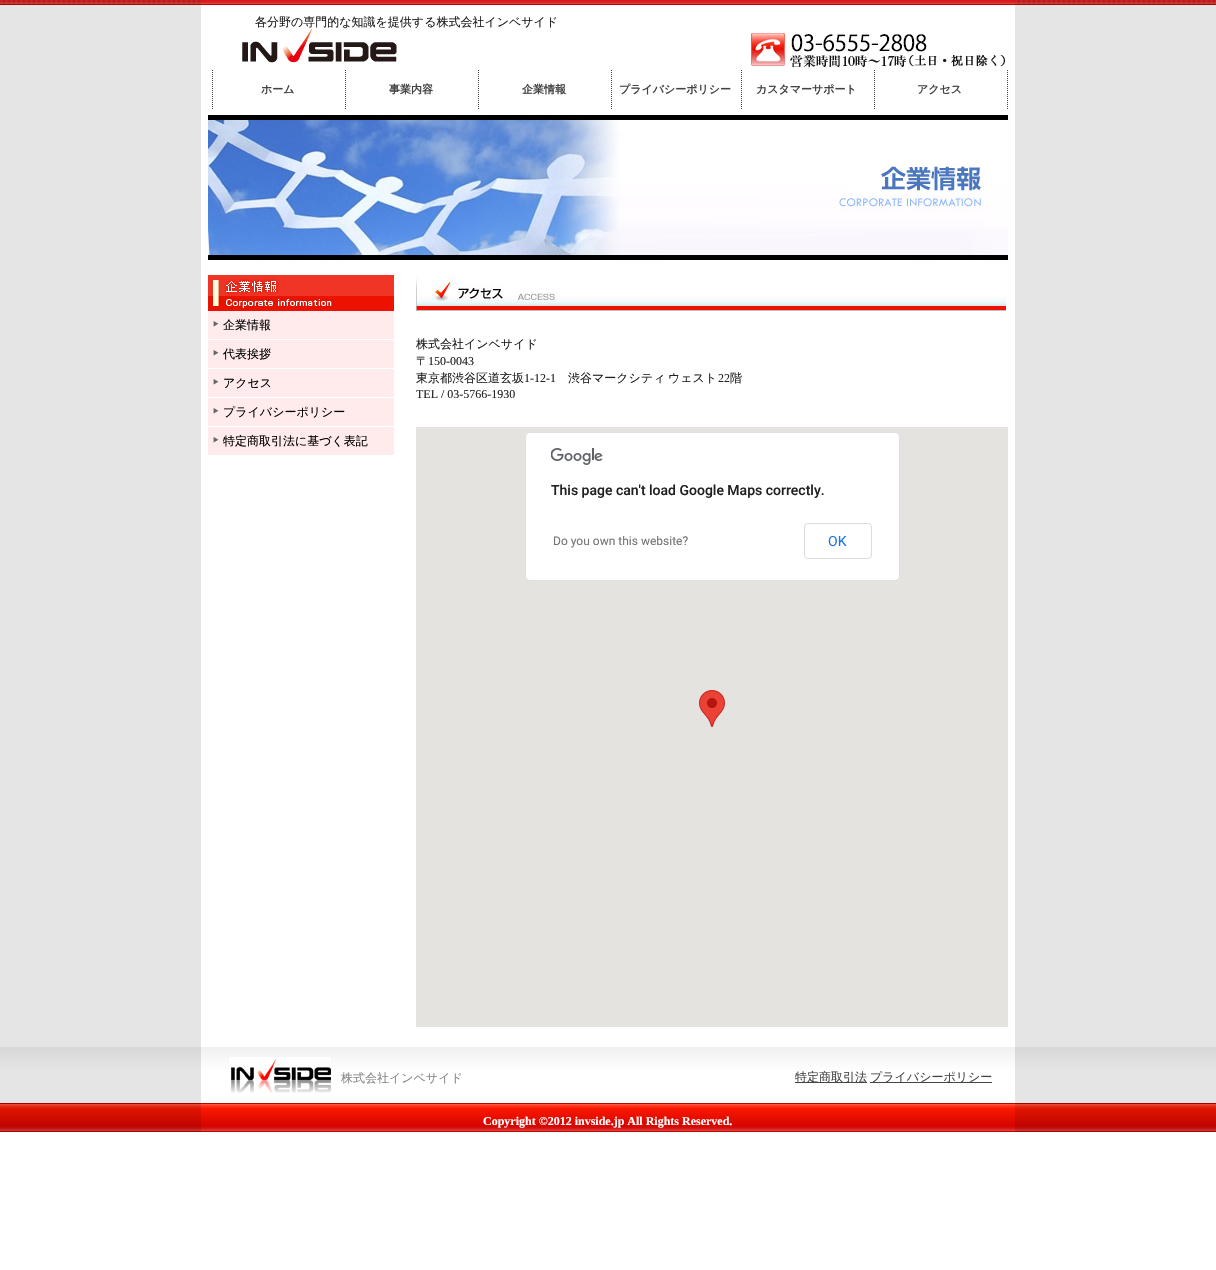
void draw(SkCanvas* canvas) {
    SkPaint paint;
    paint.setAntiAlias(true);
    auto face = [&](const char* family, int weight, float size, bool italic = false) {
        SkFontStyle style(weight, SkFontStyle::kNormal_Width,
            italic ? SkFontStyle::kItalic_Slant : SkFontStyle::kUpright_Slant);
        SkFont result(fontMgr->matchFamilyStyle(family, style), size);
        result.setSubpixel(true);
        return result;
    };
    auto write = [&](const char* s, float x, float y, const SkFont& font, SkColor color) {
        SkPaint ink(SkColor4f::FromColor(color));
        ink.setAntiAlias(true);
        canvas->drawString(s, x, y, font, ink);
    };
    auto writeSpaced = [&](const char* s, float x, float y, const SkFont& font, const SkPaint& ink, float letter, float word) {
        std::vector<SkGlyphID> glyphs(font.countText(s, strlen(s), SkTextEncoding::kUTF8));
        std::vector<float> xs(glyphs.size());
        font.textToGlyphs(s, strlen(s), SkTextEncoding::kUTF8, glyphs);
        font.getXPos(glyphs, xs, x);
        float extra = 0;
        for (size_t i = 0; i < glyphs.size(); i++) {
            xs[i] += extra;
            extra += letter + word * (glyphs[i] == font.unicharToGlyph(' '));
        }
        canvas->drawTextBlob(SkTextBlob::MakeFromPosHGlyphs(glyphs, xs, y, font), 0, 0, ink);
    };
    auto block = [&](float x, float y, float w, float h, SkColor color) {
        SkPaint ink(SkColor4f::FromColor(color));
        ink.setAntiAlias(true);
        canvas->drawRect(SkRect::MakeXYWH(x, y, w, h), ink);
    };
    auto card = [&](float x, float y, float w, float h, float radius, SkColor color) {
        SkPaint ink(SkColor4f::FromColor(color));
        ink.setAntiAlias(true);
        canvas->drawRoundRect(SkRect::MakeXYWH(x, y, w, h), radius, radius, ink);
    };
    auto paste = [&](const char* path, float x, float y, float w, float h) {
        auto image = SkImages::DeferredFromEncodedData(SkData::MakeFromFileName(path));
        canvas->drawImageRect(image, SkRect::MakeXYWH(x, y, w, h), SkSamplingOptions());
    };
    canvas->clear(SK_ColorWHITE);
    block(0, 5, 1216, 1042, SkColorSetRGB(229, 229, 229));
    paste("pic1.png", 0, 0, 1216, 5);
    block(201, 5, 814, 1042, SK_ColorWHITE);
    paste("pic2.png", 201, 0, 814, 5);
    paste("pic3.png", 751, 33, 254, 35);
    paste("pic4.png", 242, 28, 155, 35);
    auto kFont1 = face("WenQuanYi Zen Hei", 500, 12);
    write("各分野の専門的な知識を提供する株式会社インベサイド", 255, 26, kFont1, SkColorSetRGB(32, 32, 32));
    paint.setStyle(SkPaint::kStroke_Style);
    paint.setStrokeWidth(1);
    paint.setColor(SkColorSetRGB(68, 68, 68));
    paint.setPathEffect(SkDashPathEffect::Make({{1, 1}}, 0));
    canvas->drawPath(SkPathBuilder().moveTo(1007.5f, 70).lineTo(1007.5f, 110).detach(), paint);
    paint.setPathEffect(nullptr);
    paint.setPathEffect(SkDashPathEffect::Make({{1, 1}}, 0));
    canvas->drawPath(SkPathBuilder().moveTo(212.5f, 70).lineTo(212.5f, 110).detach(), paint);
    paint.setPathEffect(nullptr);
    auto kFont2 = face("WenQuanYi Zen Hei", 700, 11);
    write("ホーム", 261, 93, kFont2, SkColorSetRGB(68, 68, 68));
    paint.setPathEffect(SkDashPathEffect::Make({{1, 1}}, 0));
    canvas->drawPath(SkPathBuilder().moveTo(345.5f, 70).lineTo(345.5f, 110).detach(), paint);
    paint.setPathEffect(nullptr);
    write("事業内容", 389, 93, kFont2, SkColorSetRGB(68, 68, 68));
    paint.setPathEffect(SkDashPathEffect::Make({{1, 1}}, 0));
    canvas->drawPath(SkPathBuilder().moveTo(478.5f, 70).lineTo(478.5f, 110).detach(), paint);
    paint.setPathEffect(nullptr);
    write("企業情報", 522, 93, kFont2, SkColorSetRGB(68, 68, 68));
    paint.setPathEffect(SkDashPathEffect::Make({{1, 1}}, 0));
    canvas->drawPath(SkPathBuilder().moveTo(611.5f, 70).lineTo(611.5f, 110).detach(), paint);
    paint.setPathEffect(nullptr);
    write("プライバシーポリシー", 619, 93, kFont2, SkColorSetRGB(68, 68, 68));
    paint.setPathEffect(SkDashPathEffect::Make({{1, 1}}, 0));
    canvas->drawPath(SkPathBuilder().moveTo(741.5f, 70).lineTo(741.5f, 110).detach(), paint);
    paint.setPathEffect(nullptr);
    write("カスタマーサポート", 756, 93, kFont2, SkColorSetRGB(68, 68, 68));
    paint.setPathEffect(SkDashPathEffect::Make({{1, 1}}, 0));
    canvas->drawPath(SkPathBuilder().moveTo(874.5f, 70).lineTo(874.5f, 110).detach(), paint);
    paint.setPathEffect(nullptr);
    write("アクセス", 917, 93, kFont2, SkColorSetRGB(68, 68, 68));
    paste("pic5.png", 208, 115, 800, 145);
    paste("pic6.png", 208, 275, 186, 36);
    block(208, 311, 186, 28, SkColorSetRGB(255, 234, 236));
    paste("pic7.png", 213, 321, 6, 6);
    write("企業情報", 223, 329, kFont1, SK_ColorBLACK);
    block(208, 340, 186, 28, SkColorSetRGB(255, 234, 236));
    paste("pic7.png", 213, 350, 6, 6);
    write("代表挨拶", 223, 358, kFont1, SK_ColorBLACK);
    block(208, 369, 186, 28, SkColorSetRGB(255, 234, 236));
    paste("pic7.png", 213, 379, 6, 6);
    write("アクセス", 223, 387, kFont1, SK_ColorBLACK);
    block(208, 398, 186, 28, SkColorSetRGB(255, 234, 236));
    paste("pic7.png", 213, 408, 6, 6);
    write("プライバシーポリシー", 223, 416, kFont1, SK_ColorBLACK);
    block(208, 427, 186, 28, SkColorSetRGB(255, 234, 236));
    paste("pic7.png", 213, 437, 6, 6);
    write("特定商取引法に基づく表記", 223, 445, kFont1, SK_ColorBLACK);
    paste("pic8.png", 416, 275, 590, 36);
    write("株式会社インベサイド", 416, 348, kFont1, SkColorSetRGB(32, 32, 32));
    write("〒", 416, 365, kFont1, SkColorSetRGB(32, 32, 32));
    auto kFont3 = face("Liberation Serif", 400, 12);
    write("150-0043", 428, 365, kFont3, SkColorSetRGB(32, 32, 32));
    write("東京都渋谷区道玄坂", 416, 382, kFont1, SkColorSetRGB(32, 32, 32));
    write("1-12-1", 524, 382, kFont3, SkColorSetRGB(32, 32, 32));
    paint.setStyle(SkPaint::kFill_Style);
    paint.setColor(SkColorSetRGB(32, 32, 32));
    writeSpaced("渋谷マークシティ ウェスト", 568, 382, kFont1, paint, 0, -1);
    write("22", 718, 382, kFont3, SkColorSetRGB(32, 32, 32));
    write("階", 730, 382, kFont1, SkColorSetRGB(32, 32, 32));
    write("TEL / 03-5766-1930", 416, 398, kFont3, SkColorSetRGB(32, 32, 32));
    block(416, 427, 592, 600, SkColorSetRGB(229, 227, 223));
    paste("pic9.png", 699, 690, 26, 37);
    card(525, 432, 375, 149, 5, SK_ColorWHITE);
    paint.setStyle(SkPaint::kStroke_Style);
    paint.setColor(SkColorSetARGB(31, 0, 0, 0));
    canvas->drawRoundRect(SkRect::MakeXYWH(525.5f, 432.5f, 374, 148), 4.5f, 4.5f, paint);
    paste("pic10.png", 551, 448, 52, 17);
    auto kFont4 = face("Roboto", 500, 14);
    write("This page can't load Google Maps correctly.", 551, 495, kFont4, SkColorSetRGB(32, 32, 32));
    auto kFont5 = face("Roboto", 400, 12);
    write("Do you own this website?", 553, 545, kFont5, SkColorSetRGB(117, 117, 117));
    paint.setColor(SkColorSetRGB(218, 220, 224));
    canvas->drawRoundRect(SkRect::MakeXYWH(804.5f, 523.5f, 67, 35), 3.5f, 3.5f, paint);
    auto kFont6 = face("Roboto", 400, 14);
    write("OK", 828, 546, kFont6, SkColorSetRGB(26, 115, 232));
    paste("pic11.png", 0, 1047, 1216, 85);
    paste("pic12.png", 201, 1047, 814, 85);
    paste("pic13.png", 229, 1057, 102, 37);
    write("株式会社インベサイド", 341, 1082, kFont1, SkColorSetRGB(136, 136, 136));
    block(795, 1082, 72, 1, SkColorSetRGB(68, 68, 68));
    write("特定商取引法", 795, 1081, kFont1, SkColorSetRGB(68, 68, 68));
    block(870, 1082, 122, 1, SkColorSetRGB(68, 68, 68));
    write("プライバシーポリシー", 870, 1081, kFont1, SkColorSetRGB(68, 68, 68));
    auto kFont7 = face("Liberation Serif", 700, 12);
    write("Copyright ©2012 invside.jp All Rights Reserved.", 483, 1125, kFont7, SK_ColorWHITE);
}
